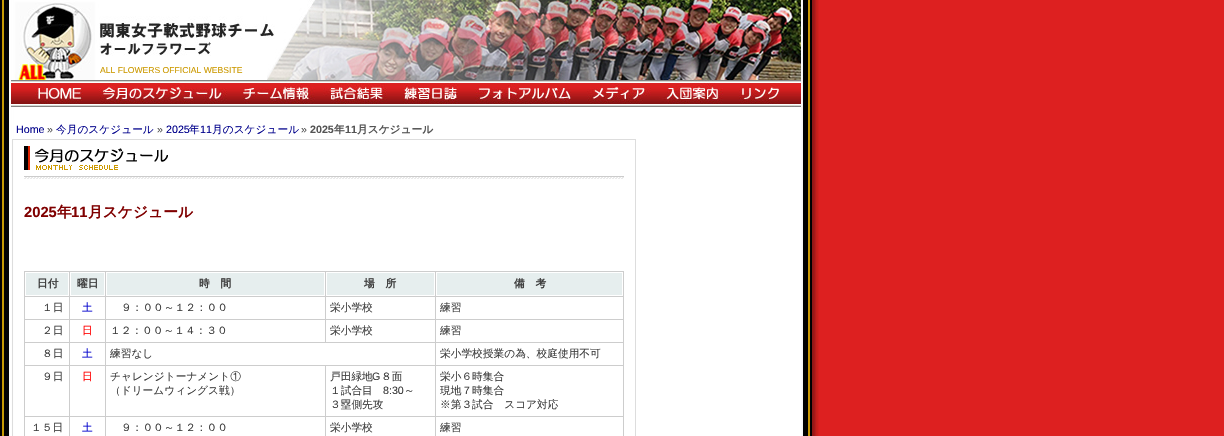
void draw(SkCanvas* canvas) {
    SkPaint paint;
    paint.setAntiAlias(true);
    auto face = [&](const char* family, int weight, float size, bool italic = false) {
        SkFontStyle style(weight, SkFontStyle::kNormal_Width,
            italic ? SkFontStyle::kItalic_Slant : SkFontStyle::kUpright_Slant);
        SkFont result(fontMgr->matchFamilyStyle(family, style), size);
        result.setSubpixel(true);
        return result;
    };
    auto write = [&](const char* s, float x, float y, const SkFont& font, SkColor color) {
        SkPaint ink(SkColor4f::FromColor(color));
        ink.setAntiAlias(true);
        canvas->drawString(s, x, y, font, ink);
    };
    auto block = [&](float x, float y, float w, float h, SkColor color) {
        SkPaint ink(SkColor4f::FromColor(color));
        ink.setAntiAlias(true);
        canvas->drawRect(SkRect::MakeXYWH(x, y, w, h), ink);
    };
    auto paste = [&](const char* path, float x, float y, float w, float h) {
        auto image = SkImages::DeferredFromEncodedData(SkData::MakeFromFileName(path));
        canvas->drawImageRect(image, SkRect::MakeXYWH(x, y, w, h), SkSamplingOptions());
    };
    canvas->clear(SkColorSetRGB(221, 32, 32));
    paste("pic1.png", 0, 0, 819, 436);
    paste("pic2.png", 14, 0, 787, 80);
    auto kFont1 = face("Liberation Sans", 400, 8.6f);
    write("ALL FLOWERS OFFICIAL WEBSITE", 100, 73, kFont1, SkColorSetRGB(204, 153, 0));
    paste("pic3.png", 11, 80, 790, 27);
    auto kFont2 = face("Liberation Sans", 400, 10.7f);
    write("Home", 16, 133, kFont2, SkColorSetRGB(0, 0, 139));
    write("»", 47, 133, kFont2, SkColorSetRGB(84, 84, 84));
    auto kFont3 = face("WenQuanYi Zen Hei", 500, 10.7f);
    write("今月のスケジュール", 56, 133, kFont3, SkColorSetRGB(0, 0, 139));
    write("»", 157, 133, kFont2, SkColorSetRGB(84, 84, 84));
    write("2025", 166, 133, kFont2, SkColorSetRGB(0, 0, 139));
    write("年", 189, 133, kFont3, SkColorSetRGB(0, 0, 139));
    write("11", 200, 133, kFont2, SkColorSetRGB(0, 0, 139));
    write("月のスケジュール", 212, 133, kFont3, SkColorSetRGB(0, 0, 139));
    write("»", 301, 133, kFont2, SkColorSetRGB(84, 84, 84));
    auto kFont4 = face("Liberation Sans", 700, 10.7f);
    write("2025", 310, 133, kFont4, SkColorSetRGB(84, 84, 84));
    auto kFont5 = face("WenQuanYi Zen Hei", 700, 10.7f);
    write("年", 334, 133, kFont5, SkColorSetRGB(84, 84, 84));
    write("11", 345, 133, kFont4, SkColorSetRGB(84, 84, 84));
    write("月スケジュール", 357, 133, kFont5, SkColorSetRGB(84, 84, 84));
    paint.setStyle(SkPaint::kStroke_Style);
    paint.setStrokeWidth(1);
    paint.setColor(SkColorSetRGB(221, 221, 221));
    canvas->drawRect(SkRect::MakeXYWH(12.5f, 139.5f, 623, 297), paint);
    paste("pic4.png", 24, 176, 600, 3);
    paste("pic5.png", 24, 146, 144, 24);
    auto kFont6 = face("Liberation Sans", 700, 14.75f);
    write("2025", 24, 217, kFont6, SkColorSetRGB(128, 0, 0));
    auto kFont7 = face("WenQuanYi Zen Hei", 700, 14.75f);
    write("年", 57, 217, kFont7, SkColorSetRGB(128, 0, 0));
    write("11", 71, 217, kFont6, SkColorSetRGB(128, 0, 0));
    write("月スケジュール", 88, 217, kFont7, SkColorSetRGB(128, 0, 0));
    block(24, 271, 600, 165, SkColorSetRGB(205, 205, 205));
    paint.setStyle(SkPaint::kFill_Style);
    paint.setColor(SkColorSetRGB(230, 238, 238));
    canvas->drawRect(SkRect::MakeXYWH(25.5f, 272.5f, 43, 23), paint);
    paint.setStyle(SkPaint::kStroke_Style);
    paint.setColor(SK_ColorWHITE);
    canvas->drawRect(SkRect::MakeXYWH(25.5f, 272.5f, 43, 23), paint);
    write("日付", 37, 287, kFont5, SkColorSetRGB(61, 61, 61));
    paint.setStyle(SkPaint::kFill_Style);
    paint.setColor(SkColorSetRGB(230, 238, 238));
    canvas->drawRect(SkRect::MakeXYWH(70.5f, 272.5f, 34, 23), paint);
    paint.setStyle(SkPaint::kStroke_Style);
    paint.setColor(SK_ColorWHITE);
    canvas->drawRect(SkRect::MakeXYWH(70.5f, 272.5f, 34, 23), paint);
    write("曜日", 77, 287, kFont5, SkColorSetRGB(61, 61, 61));
    paint.setStyle(SkPaint::kFill_Style);
    paint.setColor(SkColorSetRGB(230, 238, 238));
    canvas->drawRect(SkRect::MakeXYWH(106.5f, 272.5f, 218, 23), paint);
    paint.setStyle(SkPaint::kStroke_Style);
    paint.setColor(SK_ColorWHITE);
    canvas->drawRect(SkRect::MakeXYWH(106.5f, 272.5f, 218, 23), paint);
    write("時　間", 199, 287, kFont5, SkColorSetRGB(61, 61, 61));
    paint.setStyle(SkPaint::kFill_Style);
    paint.setColor(SkColorSetRGB(230, 238, 238));
    canvas->drawRect(SkRect::MakeXYWH(326.5f, 272.5f, 108, 23), paint);
    paint.setStyle(SkPaint::kStroke_Style);
    paint.setColor(SK_ColorWHITE);
    canvas->drawRect(SkRect::MakeXYWH(326.5f, 272.5f, 108, 23), paint);
    write("場　所", 364, 287, kFont5, SkColorSetRGB(61, 61, 61));
    paint.setStyle(SkPaint::kFill_Style);
    paint.setColor(SkColorSetRGB(230, 238, 238));
    canvas->drawRect(SkRect::MakeXYWH(436.5f, 272.5f, 186, 23), paint);
    paint.setStyle(SkPaint::kStroke_Style);
    paint.setColor(SK_ColorWHITE);
    canvas->drawRect(SkRect::MakeXYWH(436.5f, 272.5f, 186, 23), paint);
    write("備　考", 514, 287, kFont5, SkColorSetRGB(61, 61, 61));
    block(25, 297, 44, 22, SK_ColorWHITE);
    write("１日", 42, 311, kFont3, SkColorSetRGB(61, 61, 61));
    block(70, 297, 35, 22, SK_ColorWHITE);
    write("土", 82, 311, kFont3, SkColorSetRGB(0, 0, 204));
    block(106, 297, 219, 22, SK_ColorWHITE);
    write("９：００～１２：００", 121, 311, kFont3, SkColorSetRGB(61, 61, 61));
    block(326, 297, 109, 22, SK_ColorWHITE);
    write("栄小学校", 330, 311, kFont3, SkColorSetRGB(61, 61, 61));
    block(436, 297, 187, 22, SK_ColorWHITE);
    write("練習", 440, 311, kFont3, SkColorSetRGB(61, 61, 61));
    block(25, 320, 44, 22, SK_ColorWHITE);
    write("２日", 42, 334, kFont3, SkColorSetRGB(61, 61, 61));
    block(70, 320, 35, 22, SK_ColorWHITE);
    write("日", 82, 334, kFont3, SkColorSetRGB(255, 0, 0));
    block(106, 320, 219, 22, SK_ColorWHITE);
    write("１２：００～１４：３０", 110, 334, kFont3, SkColorSetRGB(61, 61, 61));
    block(326, 320, 109, 22, SK_ColorWHITE);
    write("栄小学校", 330, 334, kFont3, SkColorSetRGB(61, 61, 61));
    block(436, 320, 187, 22, SK_ColorWHITE);
    write("練習", 440, 334, kFont3, SkColorSetRGB(61, 61, 61));
    block(25, 343, 44, 22, SK_ColorWHITE);
    write("８日", 42, 357, kFont3, SkColorSetRGB(61, 61, 61));
    block(70, 343, 35, 22, SK_ColorWHITE);
    write("土", 82, 357, kFont3, SkColorSetRGB(0, 0, 204));
    block(106, 343, 329, 22, SK_ColorWHITE);
    write("練習なし", 110, 357, kFont3, SkColorSetRGB(61, 61, 61));
    block(436, 343, 187, 22, SK_ColorWHITE);
    write("栄小学校授業の為、校庭使用不可", 440, 357, kFont3, SkColorSetRGB(61, 61, 61));
    block(25, 366, 44, 50, SK_ColorWHITE);
    write("９日", 42, 380, kFont3, SkColorSetRGB(61, 61, 61));
    block(70, 366, 35, 50, SK_ColorWHITE);
    write("日", 82, 380, kFont3, SkColorSetRGB(255, 0, 0));
    block(106, 366, 219, 50, SK_ColorWHITE);
    write("チャレンジトーナメント①", 110, 380, kFont3, SkColorSetRGB(61, 61, 61));
    write("（ドリームウィングス戦）", 110, 394, kFont3, SkColorSetRGB(61, 61, 61));
    block(326, 366, 109, 50, SK_ColorWHITE);
    write("戸田緑地", 330, 380, kFont3, SkColorSetRGB(61, 61, 61));
    write("G", 372, 380, kFont2, SkColorSetRGB(61, 61, 61));
    write("８面", 381, 380, kFont3, SkColorSetRGB(61, 61, 61));
    write("１試合目", 330, 394, kFont3, SkColorSetRGB(61, 61, 61));
    write("8:30", 383, 394, kFont2, SkColorSetRGB(61, 61, 61));
    write("～", 404, 394, kFont3, SkColorSetRGB(61, 61, 61));
    write("３塁側先攻", 330, 408, kFont3, SkColorSetRGB(61, 61, 61));
    block(436, 366, 187, 50, SK_ColorWHITE);
    write("栄小６時集合", 440, 380, kFont3, SkColorSetRGB(61, 61, 61));
    write("現地７時集合", 440, 394, kFont3, SkColorSetRGB(61, 61, 61));
    write("※第３試合　スコア対応", 440, 408, kFont3, SkColorSetRGB(61, 61, 61));
    block(25, 417, 44, 19, SK_ColorWHITE);
    write("１５日", 31, 431, kFont3, SkColorSetRGB(61, 61, 61));
    block(70, 417, 35, 19, SK_ColorWHITE);
    write("土", 82, 431, kFont3, SkColorSetRGB(0, 0, 204));
    block(106, 417, 219, 19, SK_ColorWHITE);
    write("９：００～１２：００", 121, 431, kFont3, SkColorSetRGB(61, 61, 61));
    block(326, 417, 109, 19, SK_ColorWHITE);
    write("栄小学校", 330, 431, kFont3, SkColorSetRGB(61, 61, 61));
    block(436, 417, 187, 19, SK_ColorWHITE);
    write("練習", 440, 431, kFont3, SkColorSetRGB(61, 61, 61));
}
